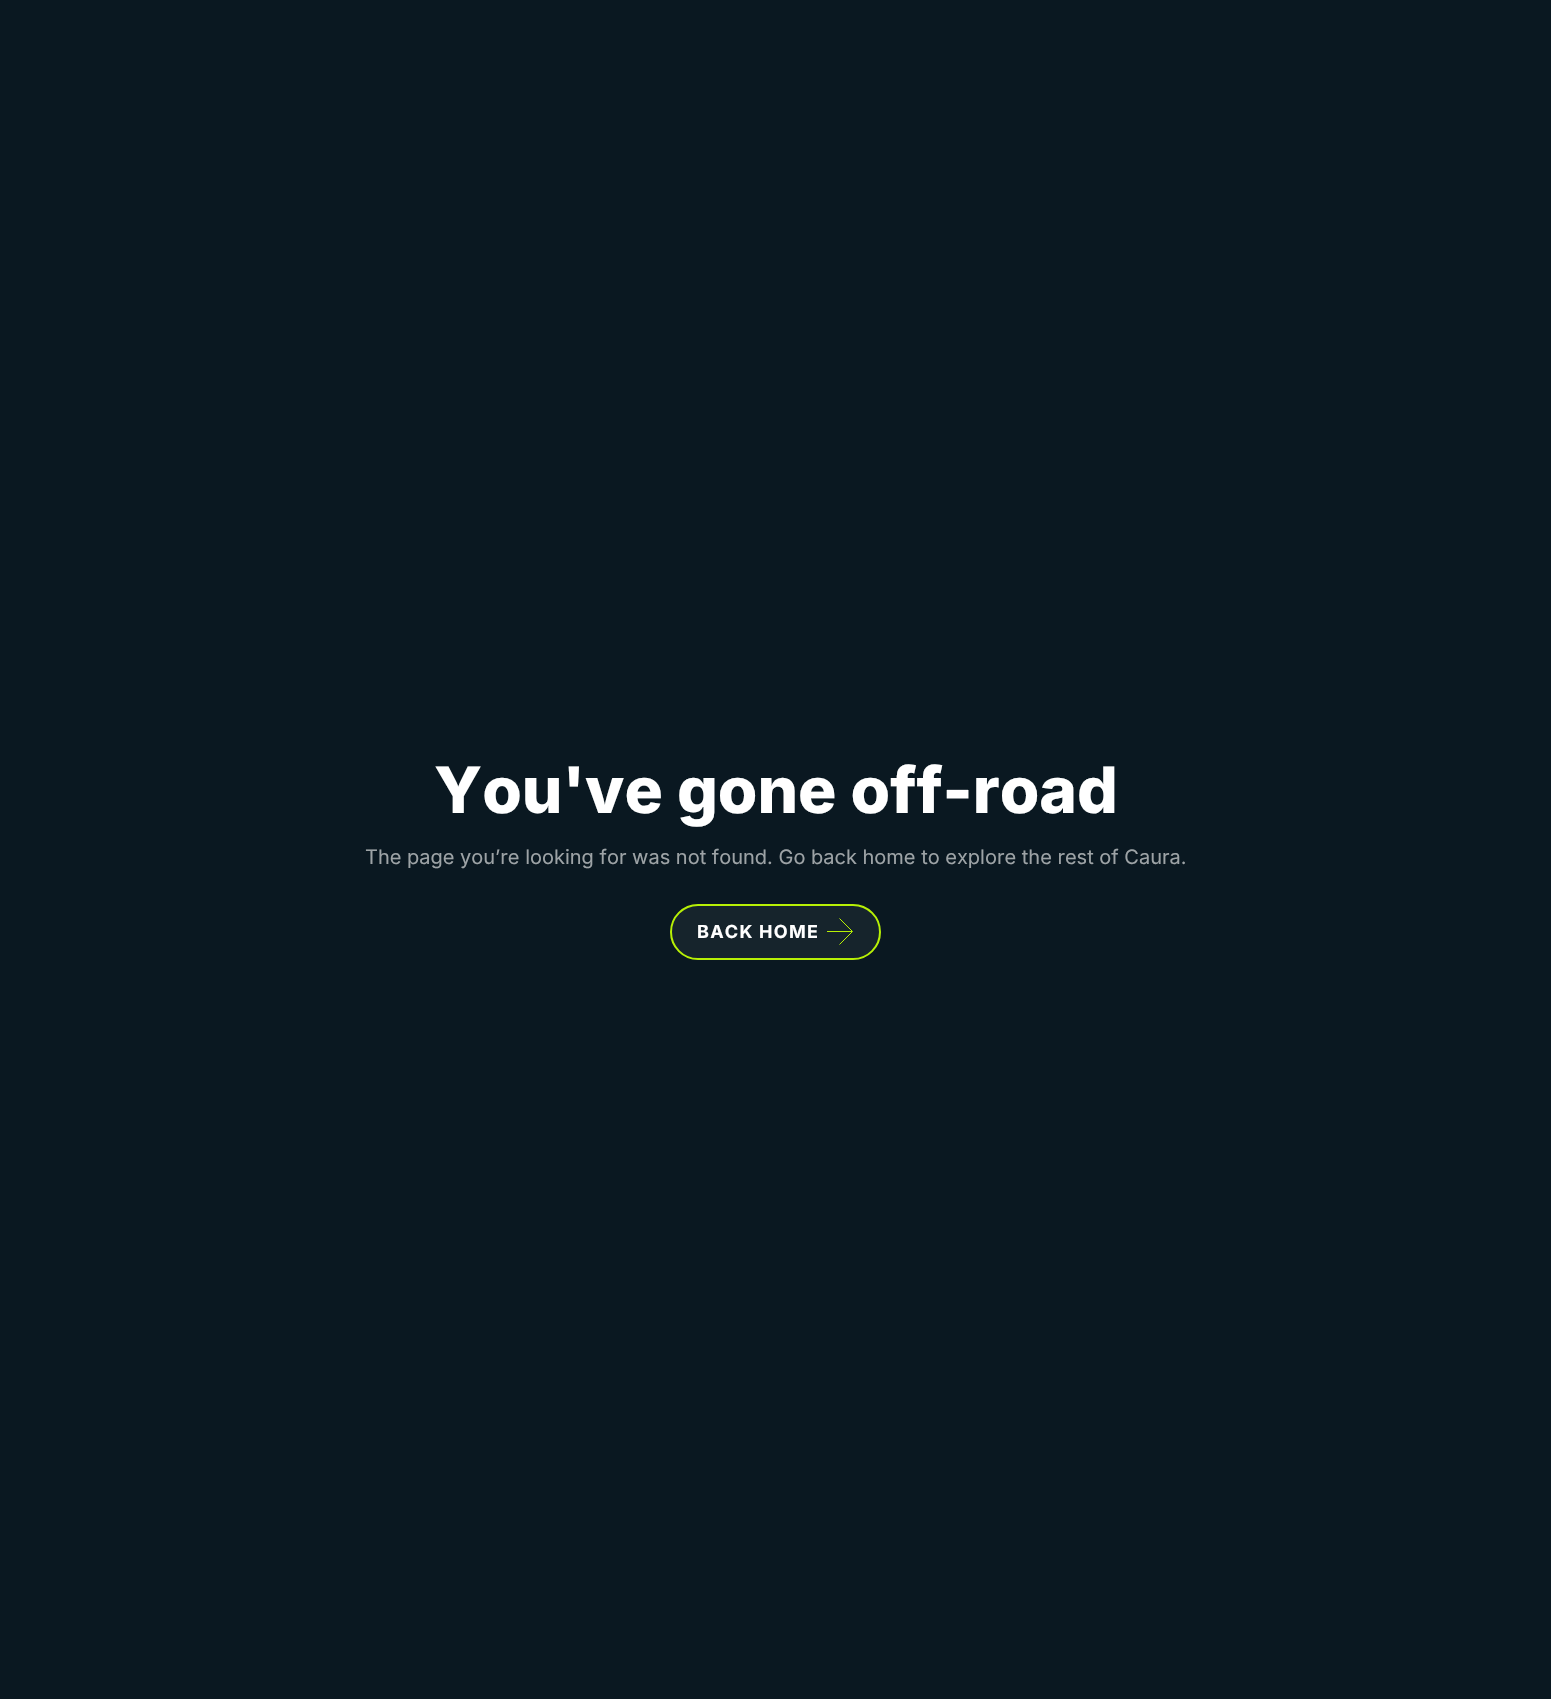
void draw(SkCanvas* canvas) {
    SkPaint paint;
    paint.setAntiAlias(true);
    auto face = [&](const char* family, int weight, float size, bool italic = false) {
        SkFontStyle style(weight, SkFontStyle::kNormal_Width,
            italic ? SkFontStyle::kItalic_Slant : SkFontStyle::kUpright_Slant);
        SkFont result(fontMgr->matchFamilyStyle(family, style), size);
        result.setSubpixel(true);
        return result;
    };
    auto write = [&](const char* s, float x, float y, const SkFont& font, SkColor color) {
        SkPaint ink(SkColor4f::FromColor(color));
        ink.setAntiAlias(true);
        canvas->drawString(s, x, y, font, ink);
    };
    auto writeSpaced = [&](const char* s, float x, float y, const SkFont& font, const SkPaint& ink, float letter, float word) {
        std::vector<SkGlyphID> glyphs(font.countText(s, strlen(s), SkTextEncoding::kUTF8));
        std::vector<float> xs(glyphs.size());
        font.textToGlyphs(s, strlen(s), SkTextEncoding::kUTF8, glyphs);
        font.getXPos(glyphs, xs, x);
        float extra = 0;
        for (size_t i = 0; i < glyphs.size(); i++) {
            xs[i] += extra;
            extra += letter + word * (glyphs[i] == font.unicharToGlyph(' '));
        }
        canvas->drawTextBlob(SkTextBlob::MakeFromPosHGlyphs(glyphs, xs, y, font), 0, 0, ink);
    };
    auto block = [&](float x, float y, float w, float h, SkColor color) {
        SkPaint ink(SkColor4f::FromColor(color));
        ink.setAntiAlias(true);
        canvas->drawRect(SkRect::MakeXYWH(x, y, w, h), ink);
    };
    canvas->clear(SkColorSetRGB(10, 24, 33));
    auto kFont1 = face("Inter", 800, 64);
    write("You've gone off-road", 434, 813, kFont1, SK_ColorWHITE);
    auto kFont2 = face("Inter", 400, 20);
    write("The page you’re looking for was not found. Go back home to explore the rest of Caura.", 365, 864, kFont2, SkColorSetRGB(157, 163, 166));
    paint.setColor(SkColorSetRGB(22, 36, 44));
    canvas->drawRoundRect(SkRect::MakeXYWH(671, 905, 209, 54), 27, 27, paint);
    paint.setStyle(SkPaint::kStroke_Style);
    paint.setStrokeWidth(2);
    paint.setColor(SkColorSetRGB(183, 240, 5));
    canvas->drawRoundRect(SkRect::MakeXYWH(671, 905, 209, 54), 27, 27, paint);
    auto kFont3 = face("Inter", 700, 18);
    paint.setStyle(SkPaint::kFill_Style);
    paint.setColor(SK_ColorWHITE);
    writeSpaced("BACK HOME", 697, 938, kFont3, paint, 1.25f, 0);
    block(827, 931, 25, 1, SkColorSetRGB(183, 240, 5));
    paint.setStyle(SkPaint::kStroke_Style);
    paint.setStrokeWidth(1);
    paint.setColor(SkColorSetRGB(183, 240, 5));
    canvas->drawPath(SkPathBuilder().moveTo(839.5f, 918.5f).lineTo(852.5f, 931.5f).lineTo(839.5f, 944.5f).detach(), paint);
}
